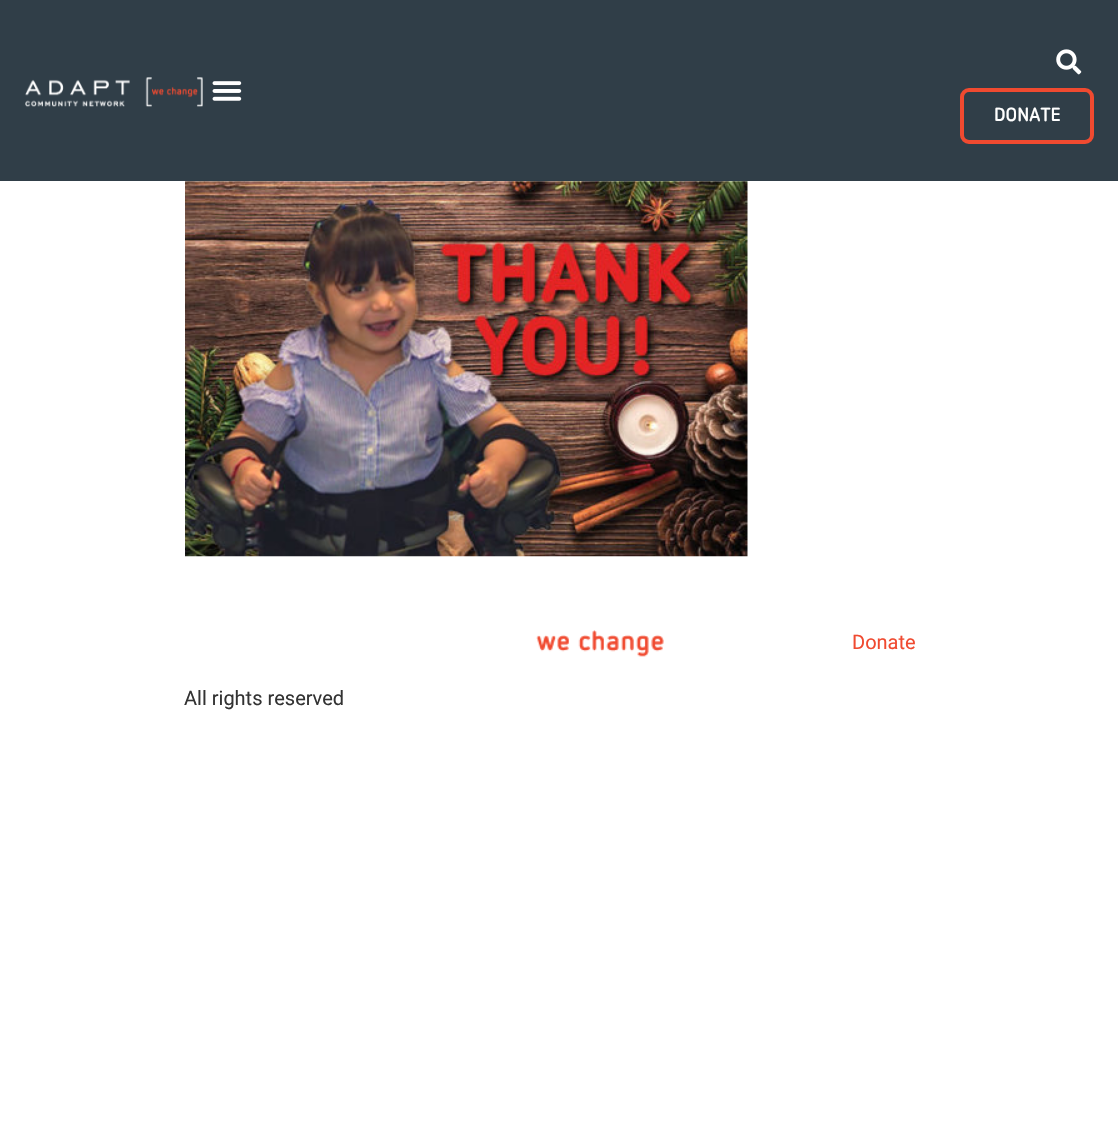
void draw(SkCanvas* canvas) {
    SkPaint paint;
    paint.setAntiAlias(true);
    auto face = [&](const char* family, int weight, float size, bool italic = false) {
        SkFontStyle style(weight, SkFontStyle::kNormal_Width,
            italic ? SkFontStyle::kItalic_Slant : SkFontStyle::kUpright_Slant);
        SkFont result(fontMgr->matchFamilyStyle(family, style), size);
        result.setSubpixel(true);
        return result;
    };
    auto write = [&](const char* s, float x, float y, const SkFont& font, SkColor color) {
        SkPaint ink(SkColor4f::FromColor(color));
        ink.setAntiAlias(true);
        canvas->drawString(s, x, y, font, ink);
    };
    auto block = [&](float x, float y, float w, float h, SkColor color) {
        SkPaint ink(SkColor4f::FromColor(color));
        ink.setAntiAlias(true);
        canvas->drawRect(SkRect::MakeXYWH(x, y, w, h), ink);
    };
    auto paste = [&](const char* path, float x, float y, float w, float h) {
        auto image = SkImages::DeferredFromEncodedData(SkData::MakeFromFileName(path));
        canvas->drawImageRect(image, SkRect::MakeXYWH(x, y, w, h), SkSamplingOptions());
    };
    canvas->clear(SK_ColorWHITE);
    block(0, 0, 1118, 181, SkColorSetRGB(48, 62, 72));
    paste("pic1.png", 25, 77, 178, 30);
    paste("pic2.png", 212, 81, 30, 20);
    paste("pic3.png", 1056, 49, 26, 26);
    paint.setStyle(SkPaint::kStroke_Style);
    paint.setStrokeWidth(4);
    paint.setColor(SkColorSetRGB(240, 74, 48));
    canvas->drawRoundRect(SkRect::MakeXYWH(962, 90, 130, 52), 7, 7, paint);
    auto kFont1 = face("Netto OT", 700, 19);
    write("DONATE", 994, 121, kFont1, SK_ColorWHITE);
    paste("pic4.png", 185, 181, 563, 376);
    paste("pic5.png", 536, 630, 128, 27);
    auto kFont2 = face("Roboto", 400, 20);
    write("Donate", 852, 649, kFont2, SkColorSetRGB(240, 74, 48));
    write("All rights reserved", 184, 705, kFont2, SkColorSetRGB(51, 51, 51));
}
